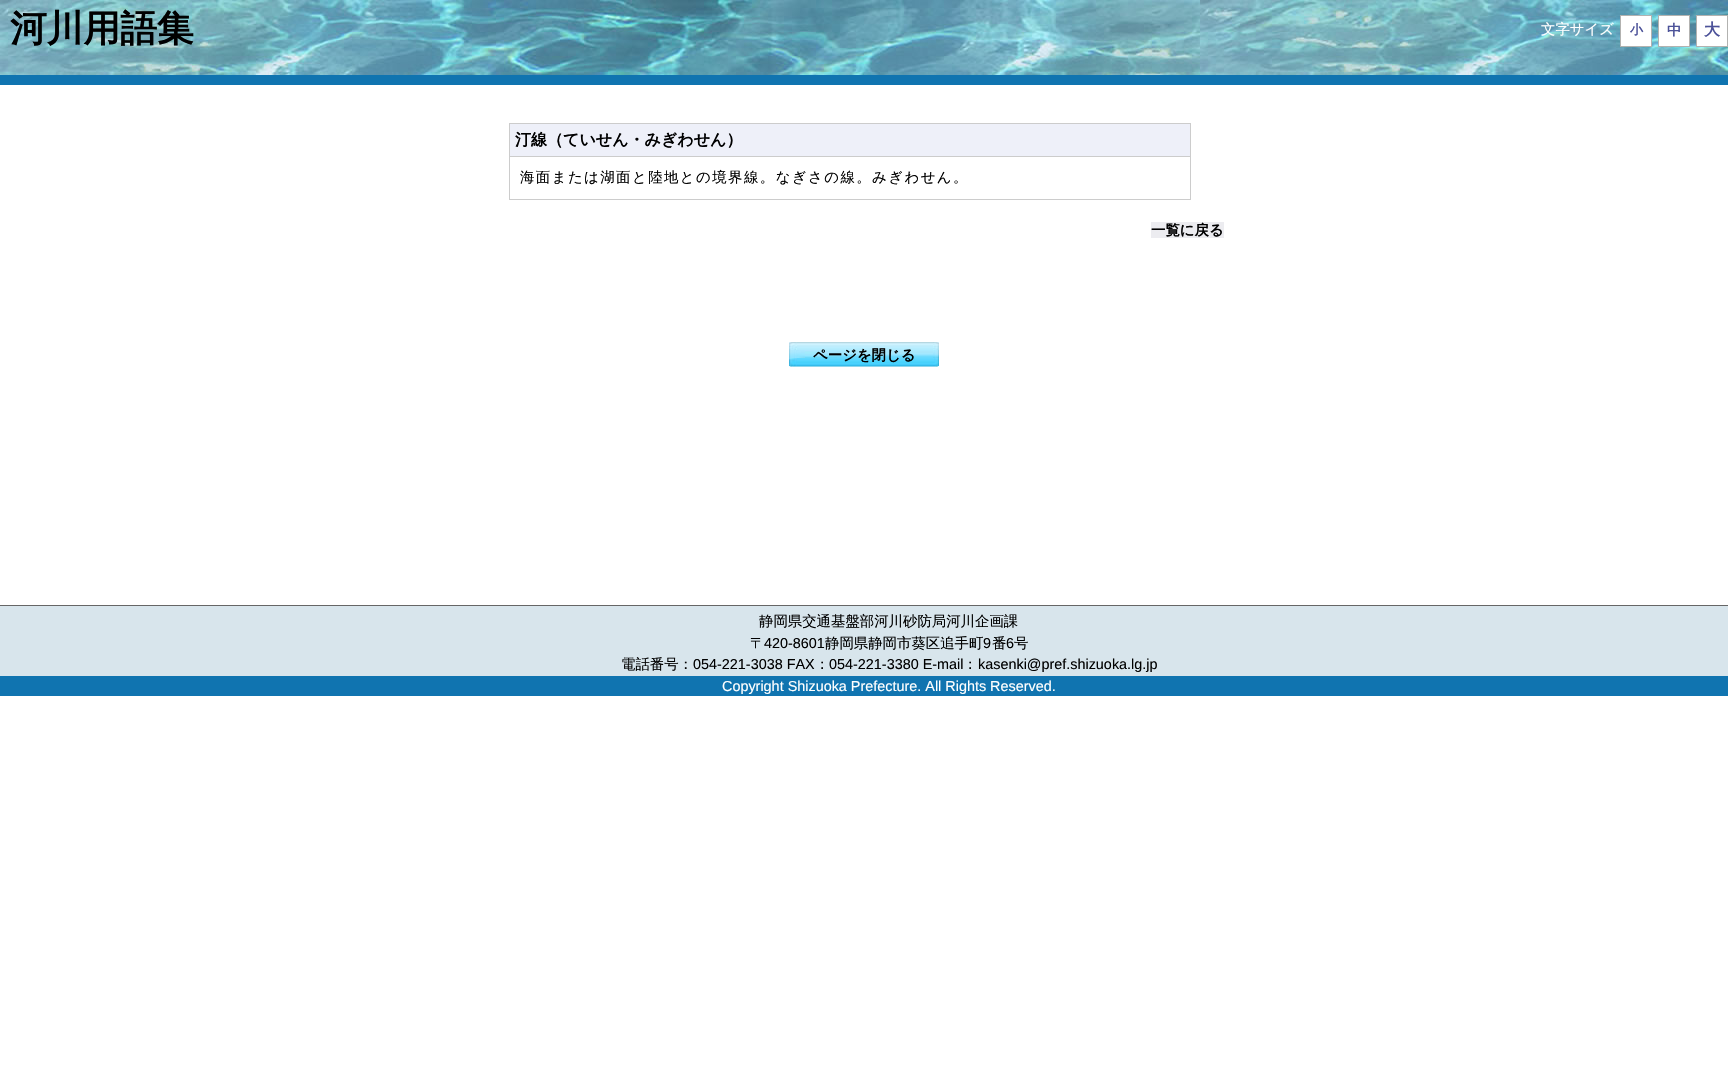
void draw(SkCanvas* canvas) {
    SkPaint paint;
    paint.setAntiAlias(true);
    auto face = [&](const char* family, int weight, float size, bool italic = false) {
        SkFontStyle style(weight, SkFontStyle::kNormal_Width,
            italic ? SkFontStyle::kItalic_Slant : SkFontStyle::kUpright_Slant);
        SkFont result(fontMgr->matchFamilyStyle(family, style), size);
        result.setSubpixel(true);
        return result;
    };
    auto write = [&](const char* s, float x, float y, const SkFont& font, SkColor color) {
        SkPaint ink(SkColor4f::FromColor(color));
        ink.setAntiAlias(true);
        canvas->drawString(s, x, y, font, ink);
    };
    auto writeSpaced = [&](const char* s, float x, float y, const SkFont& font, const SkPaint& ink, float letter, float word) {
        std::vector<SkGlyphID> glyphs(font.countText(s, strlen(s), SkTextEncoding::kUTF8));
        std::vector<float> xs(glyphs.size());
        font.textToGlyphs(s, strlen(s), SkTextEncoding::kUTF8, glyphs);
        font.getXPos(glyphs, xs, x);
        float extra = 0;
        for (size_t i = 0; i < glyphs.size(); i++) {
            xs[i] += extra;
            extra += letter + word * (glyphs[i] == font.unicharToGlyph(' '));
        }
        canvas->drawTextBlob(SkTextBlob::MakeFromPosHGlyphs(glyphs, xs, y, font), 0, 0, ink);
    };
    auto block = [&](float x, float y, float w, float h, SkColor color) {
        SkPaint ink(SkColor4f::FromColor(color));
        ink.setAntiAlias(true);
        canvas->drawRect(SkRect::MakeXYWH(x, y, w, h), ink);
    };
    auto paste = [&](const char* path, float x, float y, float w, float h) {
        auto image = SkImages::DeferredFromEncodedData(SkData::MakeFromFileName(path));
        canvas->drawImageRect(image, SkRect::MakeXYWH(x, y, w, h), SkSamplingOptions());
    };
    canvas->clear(SK_ColorWHITE);
    paste("pic1.png", 0, 0, 1728, 75);
    block(0, 75, 1728, 10, SkColorSetRGB(16, 116, 176));
    auto kFont1 = face("WenQuanYi Zen Hei", 700, 36.75f);
    write("河川用語集", 10, 41, kFont1, SK_ColorBLACK);
    auto kFont2 = face("WenQuanYi Zen Hei", 500, 14.4f);
    write("文字サイズ", 1541, 34, kFont2, SK_ColorWHITE);
    paint.setColor(SK_ColorWHITE);
    canvas->drawRect(SkRect::MakeXYWH(1620.5f, 15.5f, 31, 31), paint);
    paint.setStyle(SkPaint::kStroke_Style);
    paint.setStrokeWidth(1);
    paint.setColor(SkColorSetRGB(178, 178, 176));
    canvas->drawRect(SkRect::MakeXYWH(1620.5f, 15.5f, 31, 31), paint);
    auto kFont3 = face("WenQuanYi Zen Hei", 700, 13);
    write("小", 1630, 34, kFont3, SkColorSetRGB(76, 82, 153));
    paint.setStyle(SkPaint::kFill_Style);
    paint.setColor(SK_ColorWHITE);
    canvas->drawRect(SkRect::MakeXYWH(1658.5f, 15.5f, 31, 31), paint);
    paint.setStyle(SkPaint::kStroke_Style);
    paint.setColor(SkColorSetRGB(178, 178, 176));
    canvas->drawRect(SkRect::MakeXYWH(1658.5f, 15.5f, 31, 31), paint);
    auto kFont4 = face("WenQuanYi Zen Hei", 700, 14.4f);
    write("中", 1667, 35, kFont4, SkColorSetRGB(76, 82, 153));
    paint.setStyle(SkPaint::kFill_Style);
    paint.setColor(SK_ColorWHITE);
    canvas->drawRect(SkRect::MakeXYWH(1696.5f, 15.5f, 31, 31), paint);
    paint.setStyle(SkPaint::kStroke_Style);
    paint.setColor(SkColorSetRGB(178, 178, 176));
    canvas->drawRect(SkRect::MakeXYWH(1696.5f, 15.5f, 31, 31), paint);
    auto kFont5 = face("WenQuanYi Zen Hei", 700, 16);
    write("大", 1704, 35, kFont5, SkColorSetRGB(76, 82, 153));
    paint.setColor(SkColorSetRGB(204, 204, 204));
    canvas->drawRect(SkRect::MakeXYWH(509.5f, 123.5f, 681, 76), paint);
    block(510, 124, 680, 32, SkColorSetRGB(238, 240, 249));
    block(510, 156, 680, 1, SkColorSetRGB(204, 204, 204));
    write("汀線（ていせん・みぎわせん）", 515, 145, kFont5, SK_ColorBLACK);
    paint.setStyle(SkPaint::kFill_Style);
    paint.setColor(SK_ColorBLACK);
    writeSpaced("海面または湖面と陸地との境界線。なぎさの線。みぎわせん。", 520, 182, kFont2, paint, 1.45f, 0);
    block(1151, 222, 73, 16, SkColorSetRGB(236, 236, 240));
    write("一覧に戻る", 1151, 235, kFont4, SK_ColorBLACK);
    paste("pic2.png", 789, 342, 150, 25);
    write("ページを閉じる", 813, 360, kFont4, SK_ColorBLACK);
    block(0, 606, 1728, 70, SkColorSetRGB(216, 229, 236));
    block(0, 605, 1728, 1, SkColorSetRGB(102, 102, 102));
    write("静岡県交通基盤部河川砂防局河川企画課", 759, 626, kFont2, SK_ColorBLACK);
    write("〒", 750, 648, kFont2, SK_ColorBLACK);
    auto kFont6 = face("Liberation Sans", 400, 14.4f);
    write("420-8601", 764, 648, kFont6, SK_ColorBLACK);
    write("静岡県静岡市葵区追手町", 825, 648, kFont2, SK_ColorBLACK);
    write("9", 983, 648, kFont6, SK_ColorBLACK);
    write("番", 992, 648, kFont2, SK_ColorBLACK);
    write("6", 1006, 648, kFont6, SK_ColorBLACK);
    write("号", 1014, 648, kFont2, SK_ColorBLACK);
    write("電話番号：", 621, 669, kFont2, SK_ColorBLACK);
    write("054-221-3038 FAX", 693, 669, kFont6, SK_ColorBLACK);
    write("：", 815, 669, kFont2, SK_ColorBLACK);
    write("054-221-3380 E-mail", 829, 669, kFont6, SK_ColorBLACK);
    write("：", 963, 669, kFont2, SK_ColorBLACK);
    write("kasenki@pref.shizuoka.lg.jp", 978, 669, kFont6, SK_ColorBLACK);
    block(0, 676, 1728, 20, SkColorSetRGB(16, 116, 176));
    write("Copyright Shizuoka Prefecture. All Rights Reserved.", 722, 691, kFont6, SK_ColorWHITE);
}
